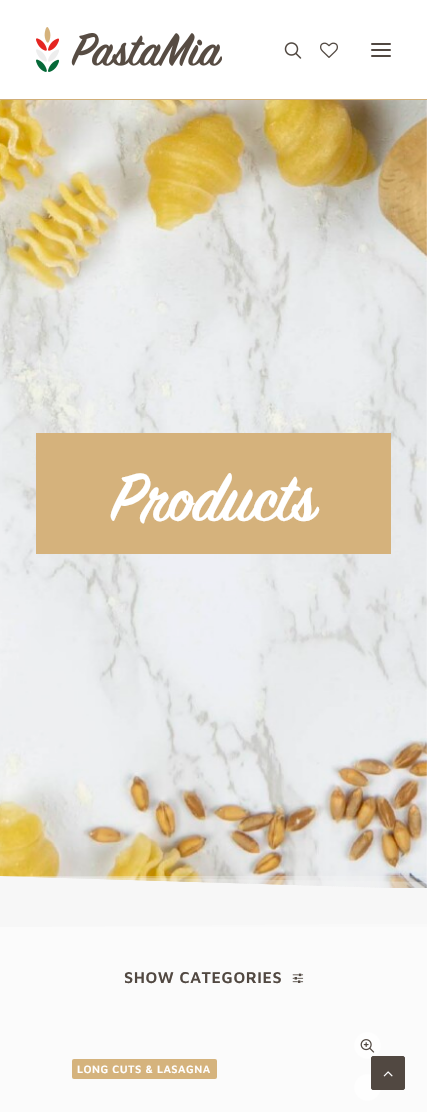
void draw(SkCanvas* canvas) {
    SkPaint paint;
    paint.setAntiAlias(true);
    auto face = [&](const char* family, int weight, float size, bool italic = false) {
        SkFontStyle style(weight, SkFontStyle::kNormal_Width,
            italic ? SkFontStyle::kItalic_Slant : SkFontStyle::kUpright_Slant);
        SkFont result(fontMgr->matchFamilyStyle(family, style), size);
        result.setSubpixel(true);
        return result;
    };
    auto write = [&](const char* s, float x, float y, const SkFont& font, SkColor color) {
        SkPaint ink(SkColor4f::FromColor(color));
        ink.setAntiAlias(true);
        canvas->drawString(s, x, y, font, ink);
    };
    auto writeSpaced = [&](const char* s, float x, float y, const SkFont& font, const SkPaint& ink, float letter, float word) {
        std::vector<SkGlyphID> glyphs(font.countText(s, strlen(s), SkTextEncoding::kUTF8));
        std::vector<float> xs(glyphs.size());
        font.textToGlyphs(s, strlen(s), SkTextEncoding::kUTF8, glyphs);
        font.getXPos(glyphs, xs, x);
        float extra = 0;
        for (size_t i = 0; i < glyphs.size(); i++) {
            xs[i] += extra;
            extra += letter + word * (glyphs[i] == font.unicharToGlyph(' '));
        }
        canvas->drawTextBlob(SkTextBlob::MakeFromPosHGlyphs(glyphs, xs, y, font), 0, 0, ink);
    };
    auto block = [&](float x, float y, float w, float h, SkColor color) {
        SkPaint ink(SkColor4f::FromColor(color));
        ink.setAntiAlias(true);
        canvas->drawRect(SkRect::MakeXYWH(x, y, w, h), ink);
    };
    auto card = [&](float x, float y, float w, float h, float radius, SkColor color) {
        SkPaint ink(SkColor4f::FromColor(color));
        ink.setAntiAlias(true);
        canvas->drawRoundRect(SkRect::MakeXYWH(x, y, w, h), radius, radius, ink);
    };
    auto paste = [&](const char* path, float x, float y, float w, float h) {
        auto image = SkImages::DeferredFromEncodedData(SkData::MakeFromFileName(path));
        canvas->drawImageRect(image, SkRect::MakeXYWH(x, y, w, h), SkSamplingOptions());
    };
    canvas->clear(SK_ColorWHITE);
    block(0, 99, 427, 1, SkColorSetRGB(209, 174, 120));
    paste("pic1.png", 36, 27, 186, 45);
    paste("pic2.png", 284, 42, 18, 17);
    paste("pic3.png", 320, 42, 18, 16);
    card(371, 49, 20, 2, 1, SkColorSetRGB(81, 72, 65));
    card(371, 43, 20, 2, 1, SkColorSetRGB(81, 72, 65));
    card(371, 55, 20, 2, 1, SkColorSetRGB(81, 72, 65));
    paste("pic4.png", 0, 100, 427, 788);
    block(36, 433, 355, 121, SkColorSetRGB(213, 178, 124));
    auto kFont1 = face("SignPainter", 400, 75);
    write("Products", 112, 520, kFont1, SK_ColorWHITE);
    paint.setColor(SkColorSetRGB(247, 247, 247));
    canvas->drawPath(SkPathBuilder().moveTo(0, 889).lineTo(0, 876).lineTo(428, 889).close().detach(), paint);
    paint.setColor(SkColorSetARGB(84, 247, 247, 247));
    canvas->drawPath(SkPathBuilder().moveTo(0, 876).lineTo(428, 876).lineTo(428, 889).detach(), paint);
    canvas->drawPath(SkPathBuilder().moveTo(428, 882).lineTo(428, 889).lineTo(0, 876).close().detach(), paint);
    block(0, 888, 427, 35, SkColorSetRGB(247, 247, 247));
    block(328, 923, 99, 1, SkColorSetRGB(247, 247, 247));
    block(0, 927, 427, 185, SkColorSetRGB(251, 251, 251));
    block(0, 924, 427, 3, SkColorSetRGB(249, 249, 249));
    paint.setColor(SkColorSetRGB(247, 247, 247));
    canvas->drawPath(SkPathBuilder().moveTo(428, 923).lineTo(0, 923).lineTo(0, 927).close().detach(), paint);
    auto kFont2 = face("Maven Pro", 600, 16);
    paint.setColor(SkColorSetRGB(81, 72, 65));
    writeSpaced("SHOW CATEGORIES", 124, 983, kFont2, paint, 0.6f, 0);
    paste("pic5.png", 292, 973, 12, 10);
    paint.setColor(SkColorSetRGB(254, 254, 254));
    canvas->drawCircle(367.5f, 1045.5f, 13.5f, paint);
    paste("pic6.png", 360, 1039, 15, 14);
    card(72, 1059, 145, 20, 2, SkColorSetRGB(213, 179, 125));
    auto kFont3 = face("Maven Pro", 600, 11);
    paint.setColor(SK_ColorWHITE);
    writeSpaced("LONG CUTS & LASAGNA", 77, 1073, kFont3, paint, 0.5f, 0);
    paint.setColor(SkColorSetRGB(254, 254, 254));
    canvas->drawCircle(367.5f, 1087.5f, 13.5f, paint);
    paint.setColor(SkColorSetRGB(81, 72, 65));
    canvas->drawRoundRect(SkRect::MakeXYWH(371.5f, 1056.5f, 33, 33), 1.5f, 1.5f, paint);
    paint.setStyle(SkPaint::kStroke_Style);
    paint.setStrokeWidth(1);
    canvas->drawRoundRect(SkRect::MakeXYWH(371.5f, 1056.5f, 33, 33), 1.5f, 1.5f, paint);
    paste("pic7.png", 383, 1071, 10, 6);
}
